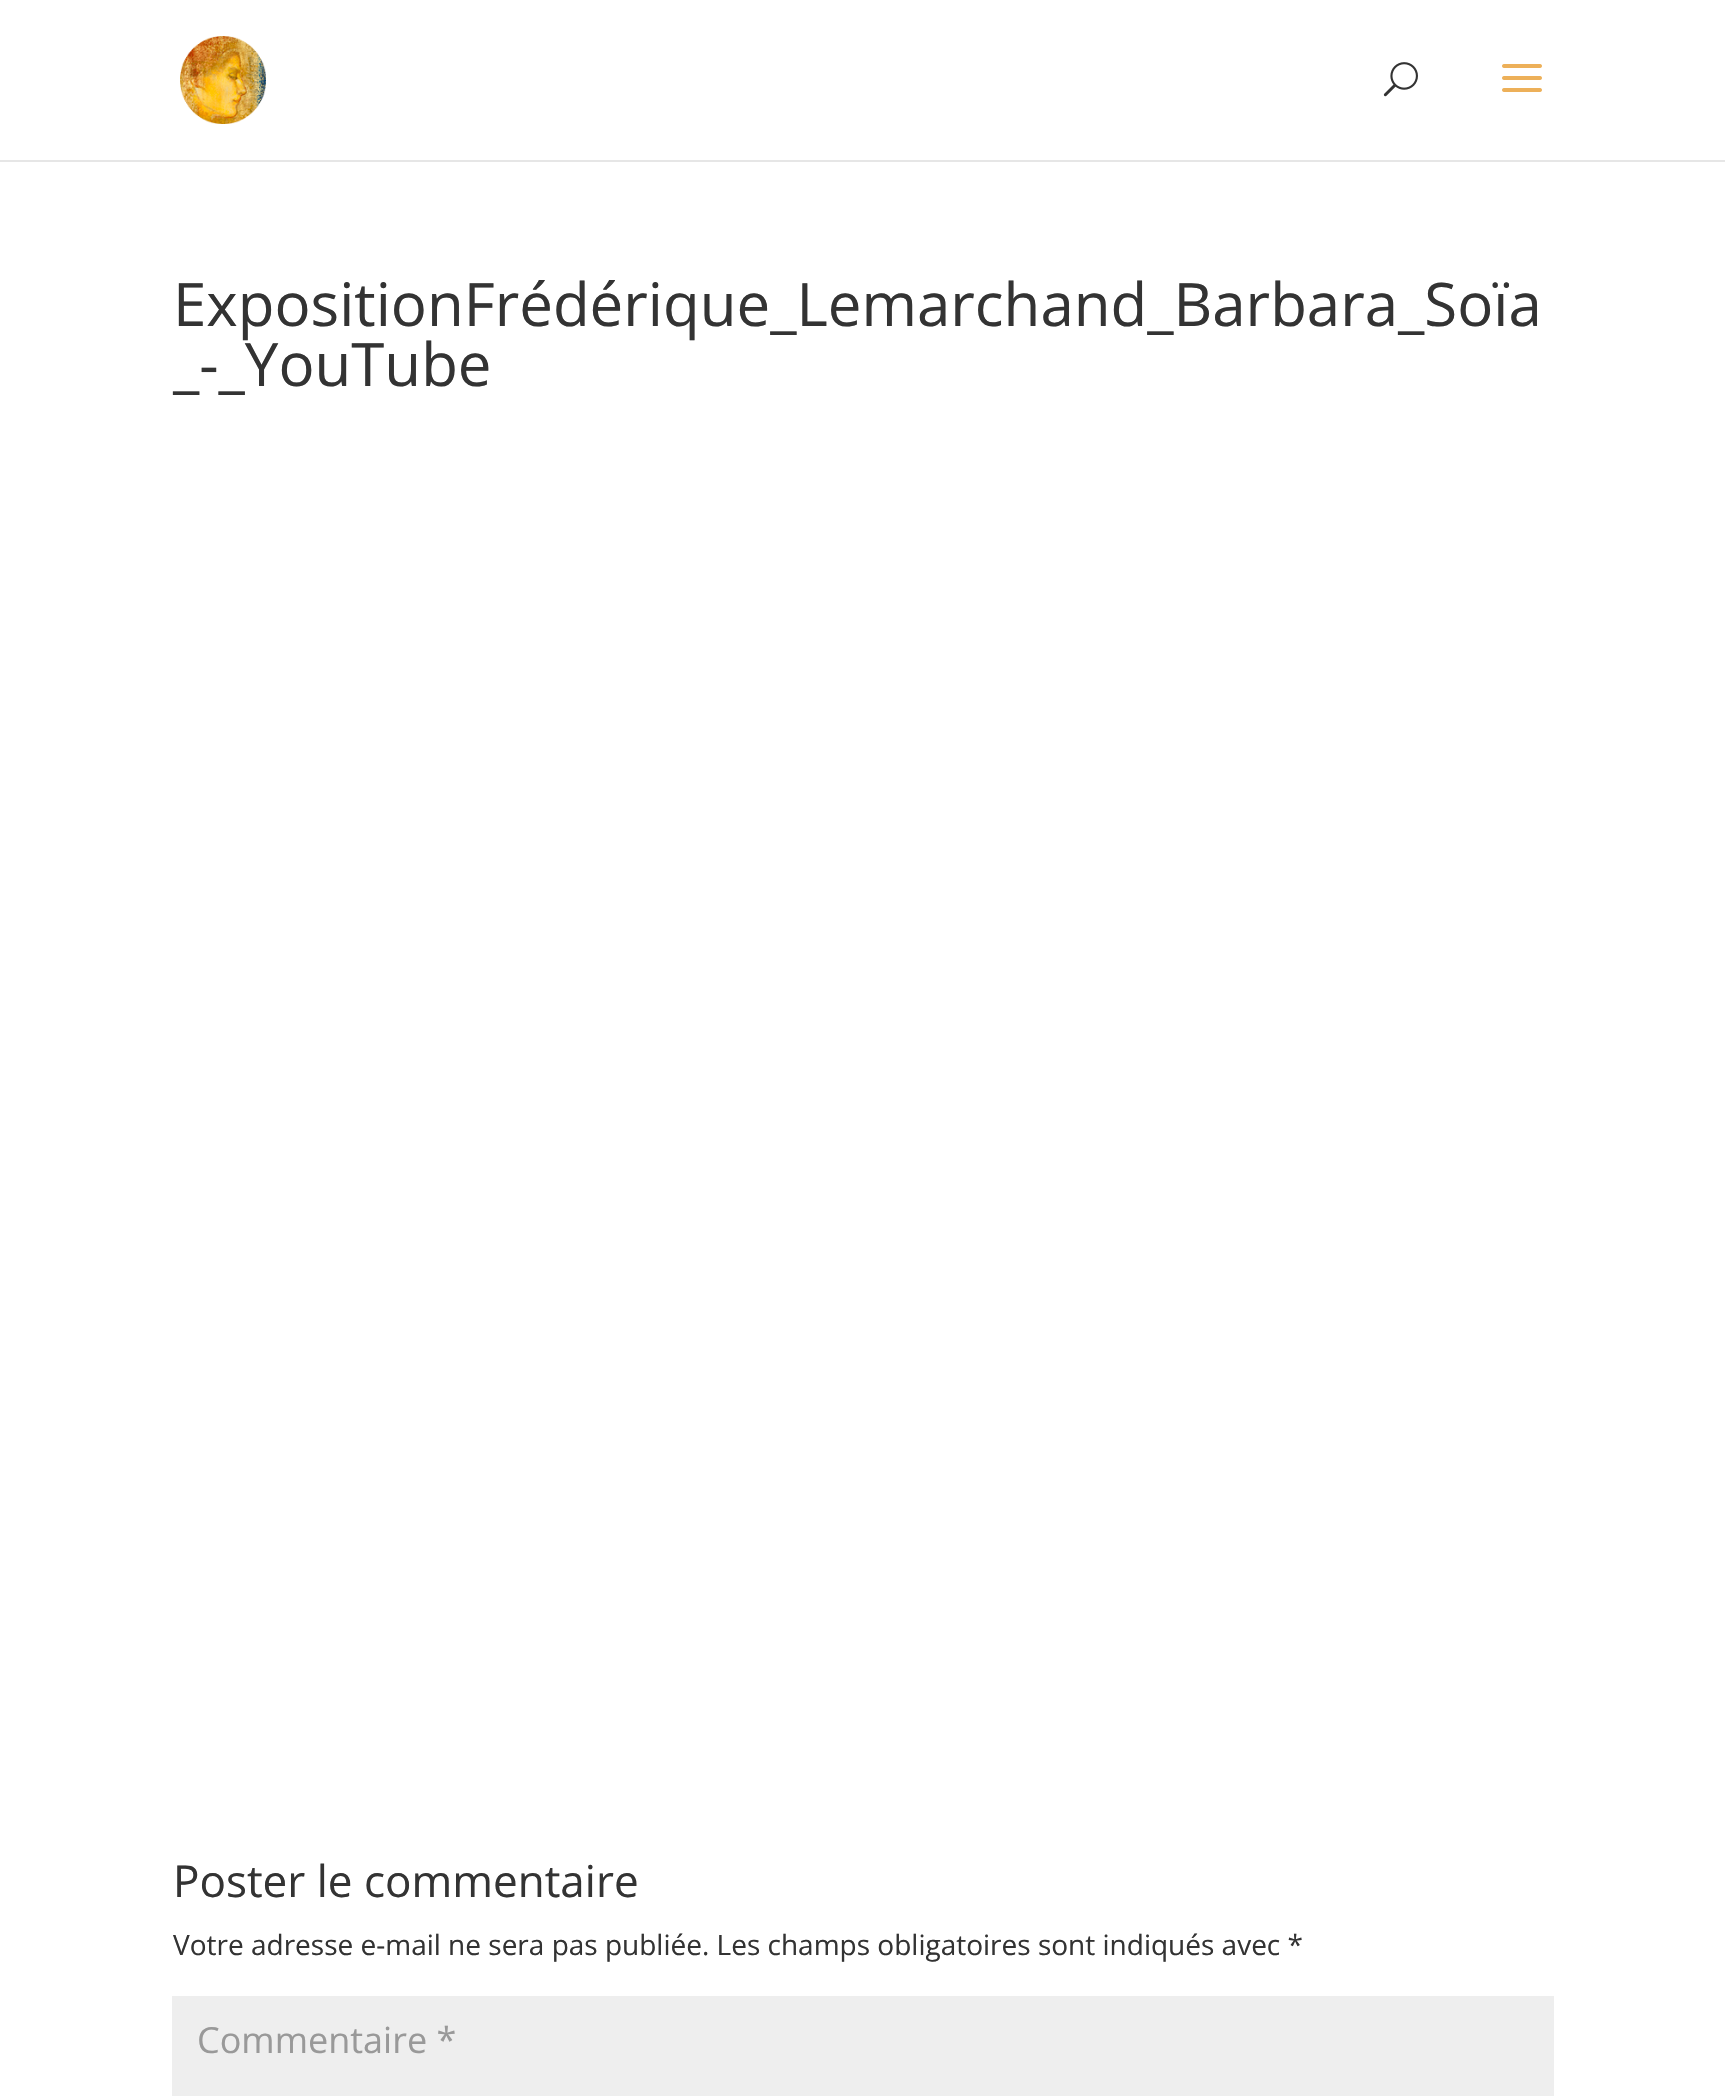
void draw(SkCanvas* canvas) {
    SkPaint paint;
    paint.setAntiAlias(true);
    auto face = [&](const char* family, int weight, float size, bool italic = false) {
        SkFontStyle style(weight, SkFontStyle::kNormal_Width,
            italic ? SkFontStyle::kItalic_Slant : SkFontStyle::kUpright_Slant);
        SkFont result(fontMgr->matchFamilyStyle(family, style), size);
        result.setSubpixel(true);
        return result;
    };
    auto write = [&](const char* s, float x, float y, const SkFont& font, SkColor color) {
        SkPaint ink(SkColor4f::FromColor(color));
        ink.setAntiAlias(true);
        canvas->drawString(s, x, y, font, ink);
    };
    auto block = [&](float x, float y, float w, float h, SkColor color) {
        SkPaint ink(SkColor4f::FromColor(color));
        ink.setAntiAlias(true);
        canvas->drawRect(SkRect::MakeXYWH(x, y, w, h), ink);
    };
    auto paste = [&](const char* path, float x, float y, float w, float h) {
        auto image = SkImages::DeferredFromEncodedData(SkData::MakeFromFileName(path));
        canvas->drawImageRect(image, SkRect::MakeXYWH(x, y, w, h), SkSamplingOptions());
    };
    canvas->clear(SK_ColorWHITE);
    block(0, 160, 1725, 2, SkColorSetRGB(230, 230, 230));
    paste("pic1.png", 180, 36, 86, 88);
    paste("pic2.png", 1383, 62, 35, 35);
    paste("pic3.png", 1502, 64, 40, 28);
    auto kFont1 = face("Open Sans", 400, 60);
    write("ExpositionFrédérique_Lemarchand_Barbara_Soïa", 173, 326, kFont1, SkColorSetRGB(51, 51, 51));
    write("_-_YouTube", 173, 386, kFont1, SkColorSetRGB(51, 51, 51));
    auto kFont2 = face("Open Sans", 400, 44);
    write("Poster le commentaire", 173, 1897, kFont2, SkColorSetRGB(51, 51, 51));
    auto kFont3 = face("Open Sans", 400, 28);
    write("Votre adresse e-mail ne sera pas publiée. Les champs obligatoires sont indiqués avec *", 173, 1955, kFont3, SkColorSetRGB(51, 51, 51));
    block(172, 1996, 1382, 100, SkColorSetRGB(238, 238, 238));
    auto kFont4 = face("Open Sans", 400, 36);
    write("Commentaire *", 197, 2053, kFont4, SkColorSetRGB(153, 153, 153));
}
